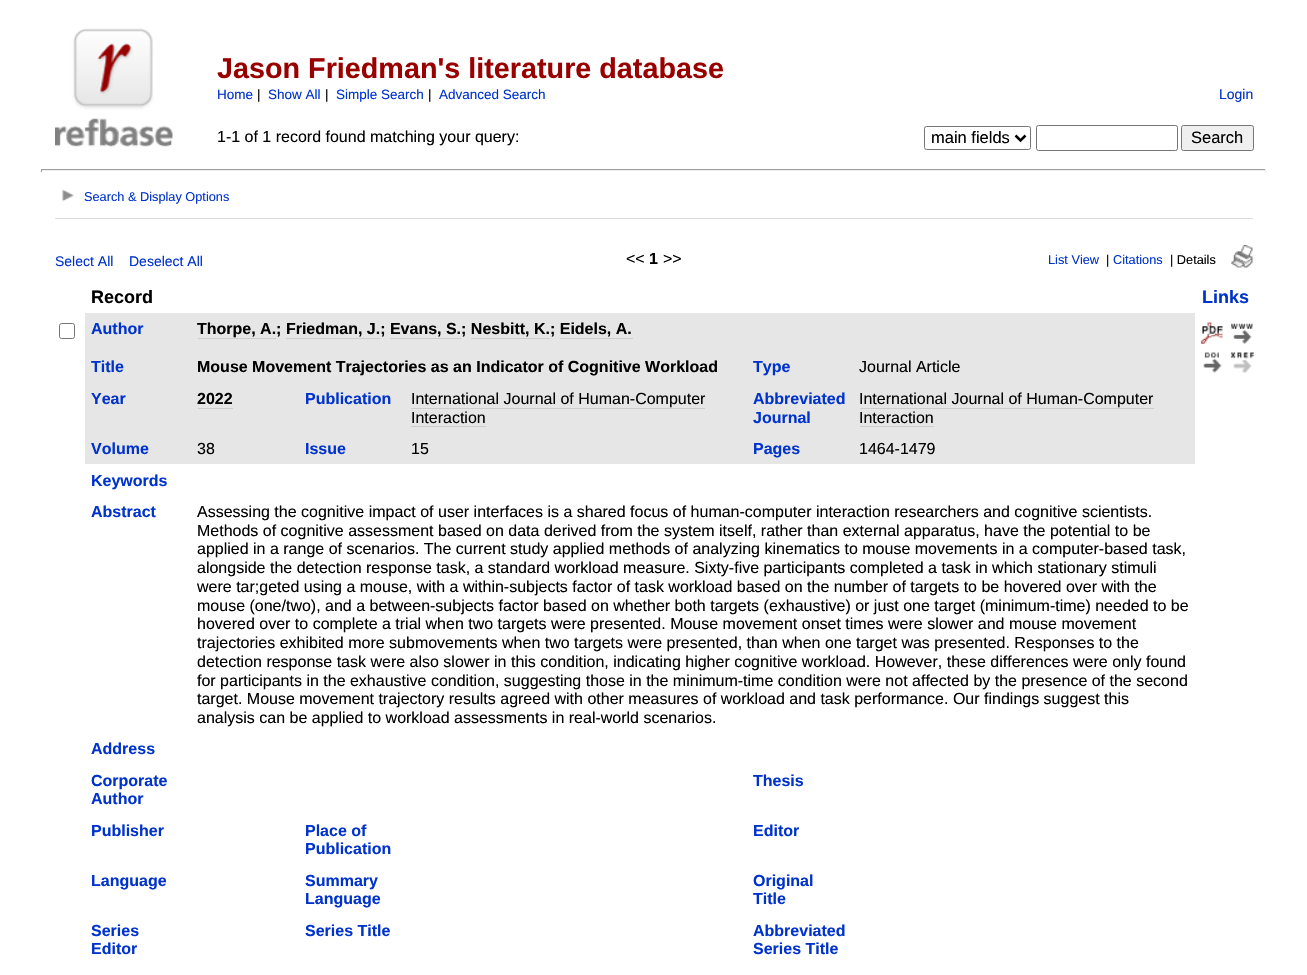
void draw(SkCanvas* canvas) {
    SkPaint paint;
    paint.setAntiAlias(true);
    auto face = [&](const char* family, int weight, float size, bool italic = false) {
        SkFontStyle style(weight, SkFontStyle::kNormal_Width,
            italic ? SkFontStyle::kItalic_Slant : SkFontStyle::kUpright_Slant);
        SkFont result(fontMgr->matchFamilyStyle(family, style), size);
        result.setSubpixel(true);
        return result;
    };
    auto write = [&](const char* s, float x, float y, const SkFont& font, SkColor color) {
        SkPaint ink(SkColor4f::FromColor(color));
        ink.setAntiAlias(true);
        canvas->drawString(s, x, y, font, ink);
    };
    auto block = [&](float x, float y, float w, float h, SkColor color) {
        SkPaint ink(SkColor4f::FromColor(color));
        ink.setAntiAlias(true);
        canvas->drawRect(SkRect::MakeXYWH(x, y, w, h), ink);
    };
    auto paste = [&](const char* path, float x, float y, float w, float h) {
        auto image = SkImages::DeferredFromEncodedData(SkData::MakeFromFileName(path));
        canvas->drawImageRect(image, SkRect::MakeXYWH(x, y, w, h), SkSamplingOptions());
    };
    canvas->clear(SK_ColorWHITE);
    paste("pic1.png", 55, 28, 118, 119);
    auto kFont1 = face("Liberation Sans", 700, 28.75f);
    write("Jason Friedman's literature database", 217, 78, kFont1, SkColorSetRGB(153, 0, 0));
    auto kFont2 = face("Liberation Sans", 400, 13.5f);
    write("Home", 217, 99, kFont2, SkColorSetRGB(0, 51, 204));
    write("|", 257, 99, kFont2, SK_ColorBLACK);
    write("Show All", 268, 99, kFont2, SkColorSetRGB(0, 51, 204));
    write("|", 325, 99, kFont2, SK_ColorBLACK);
    write("Simple Search", 336, 99, kFont2, SkColorSetRGB(0, 51, 204));
    write("|", 428, 99, kFont2, SK_ColorBLACK);
    write("Advanced Search", 439, 99, kFont2, SkColorSetRGB(0, 51, 204));
    auto kFont3 = face("Liberation Sans", 400, 14);
    write("Login", 1219, 99, kFont3, SkColorSetRGB(0, 51, 204));
    paint.setStyle(SkPaint::kStroke_Style);
    paint.setStrokeWidth(1);
    paint.setColor(SkColorSetRGB(118, 118, 118));
    canvas->drawRoundRect(SkRect::MakeXYWH(924.5f, 126.5f, 106, 23), 2, 2, paint);
    paint.setStrokeWidth(2.5f);
    paint.setColor(SK_ColorBLACK);
    canvas->drawPath(SkPathBuilder().moveTo(1015.5f, 135.5f).lineTo(1020.5f, 140.5f).lineTo(1025.5f, 135.5f).detach(), paint);
    auto kFont4 = face("Liberation Sans", 400, 16.5f);
    write("main fields", 931, 143, kFont4, SK_ColorBLACK);
    paint.setStrokeWidth(1);
    paint.setColor(SkColorSetRGB(118, 118, 118));
    canvas->drawRoundRect(SkRect::MakeXYWH(1036.5f, 125.5f, 141, 25), 2, 2, paint);
    paint.setStyle(SkPaint::kFill_Style);
    paint.setColor(SkColorSetRGB(239, 239, 239));
    canvas->drawRoundRect(SkRect::MakeXYWH(1181.5f, 125.5f, 72, 25), 2, 2, paint);
    paint.setStyle(SkPaint::kStroke_Style);
    paint.setColor(SkColorSetRGB(118, 118, 118));
    canvas->drawRoundRect(SkRect::MakeXYWH(1181.5f, 125.5f, 72, 25), 2, 2, paint);
    write("Search", 1191, 143, kFont4, SK_ColorBLACK);
    auto kFont5 = face("Liberation Sans", 400, 16);
    write("1-1 of 1 record found matching your query:", 217, 142, kFont5, SK_ColorBLACK);
    block(41, 169, 1225, 1, SkColorSetRGB(159, 159, 159));
    block(1265, 169, 1, 3, SkColorSetRGB(238, 238, 238));
    block(41, 170, 1225, 1, SkColorSetRGB(238, 238, 238));
    block(41, 169, 1, 3, SkColorSetRGB(159, 159, 159));
    paste("pic2.png", 62, 190, 12, 12);
    auto kFont6 = face("Liberation Sans", 400, 12.75f);
    write("Search & Display Options", 84, 201, kFont6, SkColorSetRGB(0, 51, 204));
    block(55, 218, 1198, 1, SkColorSetRGB(222, 222, 222));
    write("Select All", 55, 266, kFont3, SkColorSetRGB(0, 51, 204));
    write("Deselect All", 129, 266, kFont3, SkColorSetRGB(0, 51, 204));
    write("<<", 626, 264, kFont5, SK_ColorBLACK);
    auto kFont7 = face("Liberation Sans", 700, 16);
    write("1", 649, 264, kFont7, SK_ColorBLACK);
    write(">>", 663, 264, kFont5, SK_ColorBLACK);
    write("List View", 1048, 264, kFont6, SkColorSetRGB(0, 51, 204));
    write("|", 1106, 264, kFont6, SK_ColorBLACK);
    write("Citations", 1113, 264, kFont6, SkColorSetRGB(0, 51, 204));
    write("| Details", 1170, 264, kFont6, SK_ColorBLACK);
    paste("pic3.png", 1231, 245, 22, 23);
    auto kFont8 = face("Liberation Sans", 700, 18);
    write("Record", 91, 303, kFont8, SK_ColorBLACK);
    write("Links", 1202, 303, kFont8, SkColorSetRGB(0, 51, 204));
    canvas->drawRoundRect(SkRect::MakeXYWH(59.5f, 323.5f, 15, 15), 2, 2, paint);
    block(85, 313, 1110, 37, SkColorSetRGB(230, 230, 230));
    write("Author", 91, 334, kFont7, SkColorSetRGB(0, 51, 204));
    write("Thorpe, A.; Friedman, J.; Evans, S.; Nesbitt, K.; Eidels, A.", 197, 334, kFont7, SK_ColorBLACK);
    block(198, 338, 78, 1, SkColorSetRGB(204, 204, 204));
    block(286, 338, 94, 1, SkColorSetRGB(204, 204, 204));
    block(390, 338, 71, 1, SkColorSetRGB(204, 204, 204));
    block(471, 338, 79, 1, SkColorSetRGB(204, 204, 204));
    block(560, 338, 73, 1, SkColorSetRGB(204, 204, 204));
    paste("pic4.png", 1201, 322, 22, 22);
    paste("pic5.png", 1231, 323, 22, 21);
    paste("pic6.png", 1203, 352, 19, 21);
    paste("pic7.png", 1231, 352, 23, 21);
    block(85, 350, 1110, 33, SkColorSetRGB(230, 230, 230));
    write("Title", 91, 372, kFont7, SkColorSetRGB(0, 51, 204));
    write("Mouse Movement Trajectories as an Indicator of Cognitive Workload", 197, 372, kFont7, SK_ColorBLACK);
    write("Type", 753, 372, kFont7, SkColorSetRGB(0, 51, 204));
    write("Journal Article", 859, 372, kFont5, SK_ColorBLACK);
    block(85, 383, 1110, 50, SkColorSetRGB(230, 230, 230));
    write("Year", 91, 404, kFont7, SkColorSetRGB(0, 51, 204));
    write("2022", 197, 404, kFont7, SK_ColorBLACK);
    block(198, 408, 35, 1, SkColorSetRGB(204, 204, 204));
    write("Publication", 305, 404, kFont7, SkColorSetRGB(0, 51, 204));
    write("International Journal of Human-Computer", 411, 404, kFont5, SK_ColorBLACK);
    block(411, 408, 294, 1, SkColorSetRGB(204, 204, 204));
    write("Interaction", 411, 423, kFont5, SK_ColorBLACK);
    block(411, 426, 75, 1, SkColorSetRGB(204, 204, 204));
    write("Abbreviated", 753, 404, kFont7, SkColorSetRGB(0, 51, 204));
    write("Journal", 753, 423, kFont7, SkColorSetRGB(0, 51, 204));
    write("International Journal of Human-Computer", 859, 404, kFont5, SK_ColorBLACK);
    block(860, 408, 294, 1, SkColorSetRGB(204, 204, 204));
    write("Interaction", 859, 423, kFont5, SK_ColorBLACK);
    block(860, 426, 74, 1, SkColorSetRGB(204, 204, 204));
    block(85, 433, 1110, 31, SkColorSetRGB(230, 230, 230));
    write("Volume", 91, 454, kFont7, SkColorSetRGB(0, 51, 204));
    write("38", 197, 454, kFont5, SK_ColorBLACK);
    write("Issue", 305, 454, kFont7, SkColorSetRGB(0, 51, 204));
    write("15", 411, 454, kFont5, SK_ColorBLACK);
    write("Pages", 753, 454, kFont7, SkColorSetRGB(0, 51, 204));
    write("1464-1479", 859, 454, kFont5, SK_ColorBLACK);
    write("Keywords", 91, 486, kFont7, SkColorSetRGB(0, 51, 204));
    write("Abstract", 91, 517, kFont7, SkColorSetRGB(0, 51, 204));
    write("Assessing the cognitive impact of user interfaces is a shared focus of human-computer interaction researchers and cognitive scientists.", 197, 517, kFont5, SK_ColorBLACK);
    write("Methods of cognitive assessment based on data derived from the system itself, rather than external apparatus, have the potential to be", 197, 536, kFont5, SK_ColorBLACK);
    write("applied in a range of scenarios. The current study applied methods of analyzing kinematics to mouse movements in a computer-based task,", 197, 554, kFont5, SK_ColorBLACK);
    write("alongside the detection response task, a standard workload measure. Sixty-five participants completed a task in which stationary stimuli", 197, 573, kFont5, SK_ColorBLACK);
    write("were tar;geted using a mouse, with a within-subjects factor of task workload based on the number of targets to be hovered over with the", 197, 592, kFont5, SK_ColorBLACK);
    write("mouse (one/two), and a between-subjects factor based on whether both targets (exhaustive) or just one target (minimum-time) needed to be", 197, 611, kFont5, SK_ColorBLACK);
    write("hovered over to complete a trial when two targets were presented. Mouse movement onset times were slower and mouse movement", 197, 629, kFont5, SK_ColorBLACK);
    write("trajectories exhibited more submovements when two targets were presented, than when one target was presented. Responses to the", 197, 648, kFont5, SK_ColorBLACK);
    write("detection response task were also slower in this condition, indicating higher cognitive workload. However, these differences were only found", 197, 667, kFont5, SK_ColorBLACK);
    write("for participants in the exhaustive condition, suggesting those in the minimum-time condition were not affected by the presence of the second", 197, 686, kFont5, SK_ColorBLACK);
    write("target. Mouse movement trajectory results agreed with other measures of workload and task performance. Our findings suggest this", 197, 704, kFont5, SK_ColorBLACK);
    write("analysis can be applied to workload assessments in real-world scenarios.", 197, 723, kFont5, SK_ColorBLACK);
    write("Address", 91, 754, kFont7, SkColorSetRGB(0, 51, 204));
    write("Corporate", 91, 786, kFont7, SkColorSetRGB(0, 51, 204));
    write("Author", 91, 804, kFont7, SkColorSetRGB(0, 51, 204));
    write("Thesis", 753, 786, kFont7, SkColorSetRGB(0, 51, 204));
    write("Publisher", 91, 836, kFont7, SkColorSetRGB(0, 51, 204));
    write("Place of", 305, 836, kFont7, SkColorSetRGB(0, 51, 204));
    write("Publication", 305, 854, kFont7, SkColorSetRGB(0, 51, 204));
    write("Editor", 753, 836, kFont7, SkColorSetRGB(0, 51, 204));
    write("Language", 91, 886, kFont7, SkColorSetRGB(0, 51, 204));
    write("Summary", 305, 886, kFont7, SkColorSetRGB(0, 51, 204));
    write("Language", 305, 904, kFont7, SkColorSetRGB(0, 51, 204));
    write("Original", 753, 886, kFont7, SkColorSetRGB(0, 51, 204));
    write("Title", 753, 904, kFont7, SkColorSetRGB(0, 51, 204));
    write("Series", 91, 936, kFont7, SkColorSetRGB(0, 51, 204));
    write("Editor", 91, 954, kFont7, SkColorSetRGB(0, 51, 204));
    write("Series Title", 305, 936, kFont7, SkColorSetRGB(0, 51, 204));
    write("Abbreviated", 753, 936, kFont7, SkColorSetRGB(0, 51, 204));
    write("Series Title", 753, 954, kFont7, SkColorSetRGB(0, 51, 204));
}
